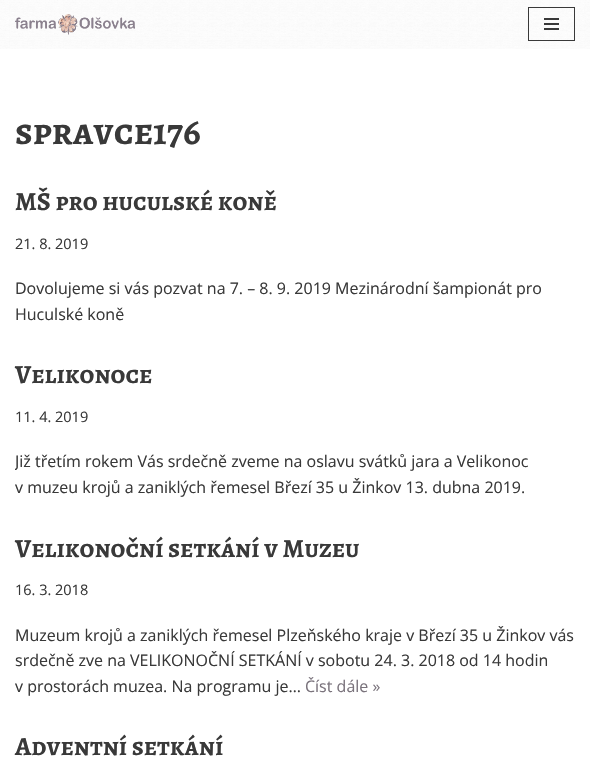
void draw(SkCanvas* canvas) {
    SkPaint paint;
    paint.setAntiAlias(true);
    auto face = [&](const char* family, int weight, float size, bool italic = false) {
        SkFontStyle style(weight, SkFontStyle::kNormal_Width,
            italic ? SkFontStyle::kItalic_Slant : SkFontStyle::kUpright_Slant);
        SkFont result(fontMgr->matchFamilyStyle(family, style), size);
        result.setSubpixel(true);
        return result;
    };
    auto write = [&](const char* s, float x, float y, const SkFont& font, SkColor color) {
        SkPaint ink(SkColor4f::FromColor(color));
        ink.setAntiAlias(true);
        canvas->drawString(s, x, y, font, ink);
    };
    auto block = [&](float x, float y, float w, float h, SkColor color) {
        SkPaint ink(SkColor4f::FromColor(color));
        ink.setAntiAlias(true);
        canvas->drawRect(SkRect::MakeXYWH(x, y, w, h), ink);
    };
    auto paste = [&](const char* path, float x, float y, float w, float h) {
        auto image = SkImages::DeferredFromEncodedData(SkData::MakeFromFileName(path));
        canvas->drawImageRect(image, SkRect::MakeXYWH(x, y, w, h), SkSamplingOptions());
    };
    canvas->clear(SK_ColorWHITE);
    paste("pic1.png", 0, 0, 590, 49);
    paste("pic2.png", 15, 14, 120, 21);
    paint.setStyle(SkPaint::kStroke_Style);
    paint.setStrokeWidth(1);
    paint.setColor(SkColorSetRGB(57, 57, 57));
    canvas->drawRect(SkRect::MakeXYWH(528.5f, 7.5f, 46, 33), paint);
    block(544, 18, 15, 2, SkColorSetRGB(57, 57, 57));
    block(544, 23, 15, 2, SkColorSetRGB(57, 57, 57));
    block(544, 28, 15, 2, SkColorSetRGB(57, 57, 57));
    auto kFont1 = face("Alegreya SC", 700, 38);
    write("spravce176", 15, 144, kFont1, SkColorSetRGB(57, 57, 57));
    auto kFont2 = face("Alegreya SC", 700, 26);
    write("MŠ pro huculské koně", 15, 210, kFont2, SkColorSetRGB(57, 57, 57));
    auto kFont3 = face("Open Sans", 400, 14.5f);
    write("21. 8. 2019", 15, 249, kFont3, SkColorSetRGB(57, 57, 57));
    auto kFont4 = face("Open Sans", 400, 16);
    write("Dovolujeme si vás pozvat na 7. – 8. 9. 2019 Mezinárodní šampionát pro", 15, 294, kFont4, SkColorSetRGB(57, 57, 57));
    write("Huculské koně", 15, 320, kFont4, SkColorSetRGB(57, 57, 57));
    write("Velikonoce", 15, 383, kFont2, SkColorSetRGB(57, 57, 57));
    write("11. 4. 2019", 15, 422, kFont3, SkColorSetRGB(57, 57, 57));
    canvas->save();
    canvas->clipRect(SkRect::MakeXYWH(15, 357, 560, 144));
    write("Již třetím rokem Vás srdečně zveme na oslavu svátků jara a Velikonoc", 15, 467, kFont4, SkColorSetRGB(57, 57, 57));
    canvas->restore();
    write("v muzeu krojů a zaniklých řemesel Březí 35 u Žinkov 13. dubna 2019.", 15, 493, kFont4, SkColorSetRGB(57, 57, 57));
    write("Velikonoční setkání v Muzeu", 15, 557, kFont2, SkColorSetRGB(57, 57, 57));
    write("16. 3. 2018", 15, 595, kFont3, SkColorSetRGB(57, 57, 57));
    write("Muzeum krojů a zaniklých řemesel Plzeňského kraje v Březí 35 u Žinkov vás", 15, 641, kFont4, SkColorSetRGB(57, 57, 57));
    write("srdečně zve na VELIKONOČNÍ SETKÁNÍ v sobotu 24. 3. 2018 od 14 hodin", 15, 666, kFont4, SkColorSetRGB(57, 57, 57));
    write("v prostorách muzea. Na programu je…", 15, 692, kFont4, SkColorSetRGB(57, 57, 57));
    write("Číst dále »", 305, 692, kFont4, SkColorSetRGB(122, 115, 124));
    write("Adventní setkání", 15, 755, kFont2, SkColorSetRGB(57, 57, 57));
}
